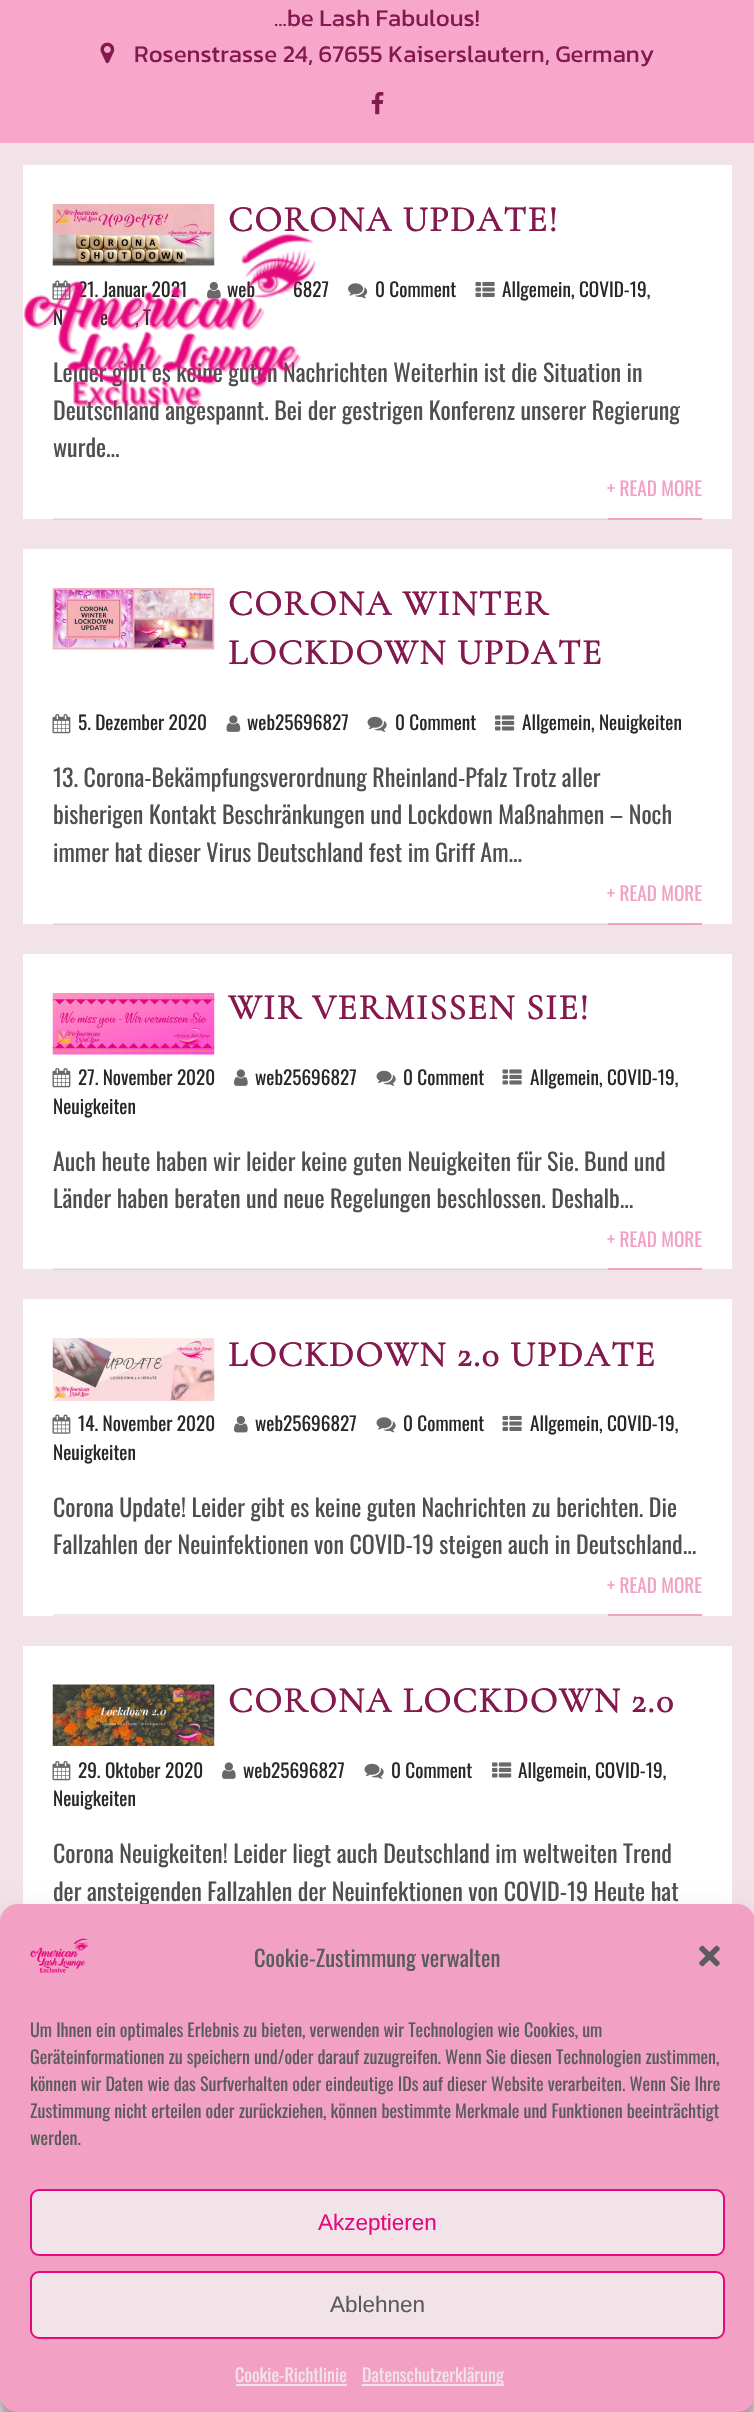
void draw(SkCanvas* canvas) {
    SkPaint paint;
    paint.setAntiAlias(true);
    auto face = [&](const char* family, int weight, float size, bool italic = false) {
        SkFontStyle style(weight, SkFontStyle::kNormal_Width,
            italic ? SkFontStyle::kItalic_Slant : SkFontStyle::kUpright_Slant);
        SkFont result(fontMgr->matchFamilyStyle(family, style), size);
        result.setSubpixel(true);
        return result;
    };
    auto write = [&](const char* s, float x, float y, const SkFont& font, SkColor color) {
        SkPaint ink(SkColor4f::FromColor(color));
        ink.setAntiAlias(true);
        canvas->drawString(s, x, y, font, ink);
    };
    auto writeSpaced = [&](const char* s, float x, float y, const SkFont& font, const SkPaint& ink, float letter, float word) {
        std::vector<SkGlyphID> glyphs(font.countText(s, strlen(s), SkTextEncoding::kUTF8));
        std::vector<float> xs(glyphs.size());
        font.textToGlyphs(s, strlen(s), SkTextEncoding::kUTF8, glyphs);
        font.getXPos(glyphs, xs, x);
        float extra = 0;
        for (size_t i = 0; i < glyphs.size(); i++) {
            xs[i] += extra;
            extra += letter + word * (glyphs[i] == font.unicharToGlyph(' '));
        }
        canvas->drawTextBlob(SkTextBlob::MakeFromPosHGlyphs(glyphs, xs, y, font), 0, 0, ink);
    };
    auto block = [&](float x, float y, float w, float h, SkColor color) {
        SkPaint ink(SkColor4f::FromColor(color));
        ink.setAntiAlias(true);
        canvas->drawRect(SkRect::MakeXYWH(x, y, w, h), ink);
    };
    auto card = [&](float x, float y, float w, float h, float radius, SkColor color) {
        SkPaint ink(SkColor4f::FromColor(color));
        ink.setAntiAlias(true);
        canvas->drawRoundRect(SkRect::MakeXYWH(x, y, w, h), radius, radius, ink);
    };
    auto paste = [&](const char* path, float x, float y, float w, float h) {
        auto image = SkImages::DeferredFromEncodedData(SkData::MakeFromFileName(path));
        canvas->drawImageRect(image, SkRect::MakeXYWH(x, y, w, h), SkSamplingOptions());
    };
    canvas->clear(SkColorSetRGB(242, 227, 232));
    block(53, 1269, 555, 1, SkColorSetRGB(223, 209, 213));
    block(53, 924, 555, 1, SkColorSetRGB(223, 209, 213));
    block(53, 519, 555, 1, SkColorSetRGB(223, 209, 213));
    block(0, 0, 754, 143, SkColorSetRGB(247, 168, 202));
    auto kFont1 = face("Kanit", 400, 24);
    write("...be Lash Fabulous!", 274, 26, kFont1, SkColorSetRGB(131, 25, 78));
    paste("pic1.png", 100, 42, 15, 22);
    write("Rosenstrasse 24, 67655 Kaiserslautern, Germany", 134, 62, kFont1, SkColorSetRGB(131, 25, 78));
    paste("pic2.png", 371, 91, 13, 24);
    block(23, 165, 709, 354, SK_ColorWHITE);
    paste("pic4.png", 52, 204, 163, 62);
    paste("pic5.png", 52, 280, 19, 20);
    auto kFont2 = face("Oswald", 400, 19.25f);
    write("21. Januar 2021", 78, 297, kFont2, SkColorSetRGB(40, 40, 40));
    paste("pic6.png", 207, 281, 14, 18);
    write("web", 227, 297, kFont2, SkColorSetRGB(40, 40, 40));
    write("6827", 293, 297, kFont2, SkColorSetRGB(40, 40, 40));
    write("N", 53, 325, kFont2, SkColorSetRGB(40, 40, 40));
    write("e", 100, 325, kFont2, SkColorSetRGB(40, 40, 40));
    write(", T", 135, 325, kFont2, SkColorSetRGB(40, 40, 40));
    auto kFont3 = face("Oswald", 400, 24);
    write("Leider gibt es keine guten Nachrichten Weiterhin ist die Situation in", 53, 382, kFont3, SkColorSetRGB(79, 79, 79));
    write("Deutschland angespannt. Bei der gestrigen Konferenz unserer Regierung", 53, 420, kFont3, SkColorSetRGB(79, 79, 79));
    paste("pic3.png", 23, 233, 293, 174);
    block(53, 518, 555, 1, SkColorSetRGB(235, 235, 235));
    auto kFont4 = face("Cormorant Garamond", 700, 36);
    paint.setColor(SkColorSetRGB(131, 25, 78));
    writeSpaced("CORONA UPDATE!", 228, 231, kFont4, paint, 1.5f, 0);
    paste("pic7.png", 348, 283, 20, 16);
    write("0 Comment", 375, 297, kFont2, SkColorSetRGB(40, 40, 40));
    paste("pic8.png", 475, 281, 20, 16);
    write("Allgemein, COVID-19,", 502, 297, kFont2, SkColorSetRGB(40, 40, 40));
    write("wurde...", 53, 457, kFont3, SkColorSetRGB(79, 79, 79));
    write("+ READ MORE", 607, 496, kFont2, SkColorSetRGB(242, 161, 197));
    block(608, 518, 94, 2, SkColorSetRGB(242, 161, 197));
    block(23, 549, 709, 375, SK_ColorWHITE);
    block(53, 923, 555, 1, SkColorSetRGB(235, 235, 235));
    paste("pic9.png", 52, 588, 163, 62);
    writeSpaced("CORONA WINTER", 228, 615, kFont4, paint, 1.5f, 0);
    writeSpaced("LOCKDOWN UPDATE", 228, 664, kFont4, paint, 1.5f, 0);
    paste("pic10.png", 52, 714, 19, 20);
    write("5. Dezember 2020", 78, 730, kFont2, SkColorSetRGB(40, 40, 40));
    paste("pic11.png", 226, 715, 15, 17);
    write("web25696827", 247, 730, kFont2, SkColorSetRGB(40, 40, 40));
    paste("pic12.png", 367, 716, 20, 16);
    write("0 Comment", 395, 730, kFont2, SkColorSetRGB(40, 40, 40));
    paste("pic13.png", 495, 715, 20, 16);
    write("Allgemein, Neuigkeiten", 522, 730, kFont2, SkColorSetRGB(40, 40, 40));
    write("13. Corona-Bekämpfungsverordnung Rheinland-Pfalz Trotz aller", 53, 787, kFont3, SkColorSetRGB(79, 79, 79));
    write("bisherigen Kontakt Beschränkungen und Lockdown Maßnahmen – Noch", 53, 824, kFont3, SkColorSetRGB(79, 79, 79));
    write("immer hat dieser Virus Deutschland fest im Griff Am...", 53, 862, kFont3, SkColorSetRGB(79, 79, 79));
    write("+ READ MORE", 607, 901, kFont2, SkColorSetRGB(242, 161, 197));
    block(608, 923, 94, 2, SkColorSetRGB(242, 161, 197));
    block(23, 954, 709, 315, SK_ColorWHITE);
    block(53, 1268, 555, 1, SkColorSetRGB(235, 235, 235));
    paste("pic14.png", 52, 993, 163, 62);
    writeSpaced("WIR VERMISSEN SIE!", 228, 1019, kFont4, paint, 1.5f, 0);
    paste("pic10.png", 52, 1068, 19, 20);
    write("27. November 2020", 78, 1085, kFont2, SkColorSetRGB(40, 40, 40));
    paste("pic15.png", 234, 1069, 14, 17);
    write("web25696827", 255, 1085, kFont2, SkColorSetRGB(40, 40, 40));
    paste("pic12.png", 376, 1070, 20, 16);
    write("0 Comment", 403, 1085, kFont2, SkColorSetRGB(40, 40, 40));
    paste("pic16.png", 502, 1069, 20, 16);
    write("Allgemein, COVID-19,", 530, 1085, kFont2, SkColorSetRGB(40, 40, 40));
    write("Neuigkeiten", 53, 1114, kFont2, SkColorSetRGB(40, 40, 40));
    write("Auch heute haben wir leider keine guten Neuigkeiten für Sie. Bund und", 53, 1171, kFont3, SkColorSetRGB(79, 79, 79));
    write("Länder haben beraten und neue Regelungen beschlossen. Deshalb...", 53, 1208, kFont3, SkColorSetRGB(79, 79, 79));
    write("+ READ MORE", 607, 1247, kFont2, SkColorSetRGB(242, 161, 197));
    block(608, 1268, 94, 2, SkColorSetRGB(242, 161, 197));
    block(23, 1299, 709, 317, SK_ColorWHITE);
    paste("pic17.png", 52, 1338, 163, 63);
    writeSpaced("LOCKDOWN 2.0 UPDATE", 228, 1366, kFont4, paint, 1.5f, 0);
    paste("pic5.png", 52, 1414, 19, 20);
    write("14. November 2020", 78, 1431, kFont2, SkColorSetRGB(40, 40, 40));
    paste("pic6.png", 234, 1415, 14, 18);
    write("web25696827", 255, 1431, kFont2, SkColorSetRGB(40, 40, 40));
    paste("pic18.png", 376, 1417, 20, 16);
    write("0 Comment", 403, 1431, kFont2, SkColorSetRGB(40, 40, 40));
    paste("pic8.png", 502, 1415, 20, 16);
    write("Allgemein, COVID-19,", 530, 1431, kFont2, SkColorSetRGB(40, 40, 40));
    write("Neuigkeiten", 53, 1460, kFont2, SkColorSetRGB(40, 40, 40));
    write("Corona Update! Leider gibt es keine guten Nachrichten zu berichten. Die", 53, 1517, kFont3, SkColorSetRGB(79, 79, 79));
    write("Fallzahlen der Neuinfektionen von COVID-19 steigen auch in Deutschland...", 53, 1554, kFont3, SkColorSetRGB(79, 79, 79));
    block(53, 1614, 555, 2, SkColorSetRGB(235, 235, 235));
    write("+ READ MORE", 607, 1593, kFont2, SkColorSetRGB(242, 161, 197));
    block(608, 1614, 94, 2, SkColorSetRGB(242, 161, 197));
    block(23, 1646, 709, 258, SK_ColorWHITE);
    paste("pic19.png", 52, 1684, 163, 62);
    writeSpaced("CORONA LOCKDOWN 2.0", 228, 1712, kFont4, paint, 1.5f, 0);
    paste("pic10.png", 52, 1761, 19, 20);
    write("29. Oktober 2020", 78, 1778, kFont2, SkColorSetRGB(40, 40, 40));
    paste("pic15.png", 222, 1762, 14, 17);
    write("web25696827", 243, 1778, kFont2, SkColorSetRGB(40, 40, 40));
    paste("pic12.png", 364, 1763, 20, 16);
    write("0 Comment", 391, 1778, kFont2, SkColorSetRGB(40, 40, 40));
    paste("pic13.png", 492, 1762, 20, 16);
    write("Allgemein, COVID-19,", 518, 1778, kFont2, SkColorSetRGB(40, 40, 40));
    write("Neuigkeiten", 53, 1806, kFont2, SkColorSetRGB(40, 40, 40));
    write("Corona Neuigkeiten! Leider liegt auch Deutschland im weltweiten Trend", 53, 1863, kFont3, SkColorSetRGB(79, 79, 79));
    write("der ansteigenden Fallzahlen der Neuinfektionen von COVID-19 Heute hat", 53, 1901, kFont3, SkColorSetRGB(79, 79, 79));
    paint.setColor(SkColorSetARGB(59, 0, 0, 0));
    paint.setMaskFilter(SkMaskFilter::MakeBlur(kNormal_SkBlurStyle, 4.5f));
    canvas->drawRoundRect(SkRect::MakeXYWH(0, 1913, 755, 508), 18, 18, paint);
    paint.setMaskFilter(nullptr);
    paint.setColor(SkColorSetARGB(48, 0, 0, 0));
    paint.setMaskFilter(SkMaskFilter::MakeBlur(kNormal_SkBlurStyle, 15));
    canvas->drawRoundRect(SkRect::MakeXYWH(0, 1919, 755, 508), 18, 18, paint);
    paint.setMaskFilter(nullptr);
    card(0, 1904, 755, 508, 18, SkColorSetRGB(242, 161, 197));
    paste("pic20.png", 30, 1938, 59, 35);
    auto kFont5 = face("Oswald", 400, 22.5f);
    write("Cookie-Zustimmung verwalten", 254, 1967, kFont5, SkColorSetRGB(91, 91, 91));
    paste("pic21.png", 699, 1945, 21, 22);
    auto kFont6 = face("Oswald", 400, 18);
    write("Um Ihnen ein optimales Erlebnis zu bieten, verwenden wir Technologien wie Cookies, um", 30, 2037, kFont6, SkColorSetRGB(91, 91, 91));
    write("Geräteinformationen zu speichern und/oder darauf zuzugreifen. Wenn Sie diesen Technologien zustimmen,", 30, 2064, kFont6, SkColorSetRGB(91, 91, 91));
    write("können wir Daten wie das Surfverhalten oder eindeutige IDs auf dieser Website verarbeiten. Wenn Sie Ihre", 30, 2091, kFont6, SkColorSetRGB(91, 91, 91));
    write("Zustimmung nicht erteilen oder zurückziehen, können bestimmte Merkmale und Funktionen beeinträchtigt", 30, 2118, kFont6, SkColorSetRGB(91, 91, 91));
    write("werden.", 30, 2145, kFont6, SkColorSetRGB(91, 91, 91));
    paint.setColor(SkColorSetRGB(242, 227, 232));
    canvas->drawRoundRect(SkRect::MakeXYWH(31, 2190, 693, 65), 8, 8, paint);
    paint.setStyle(SkPaint::kStroke_Style);
    paint.setStrokeWidth(2);
    paint.setColor(SkColorSetRGB(229, 9, 127));
    canvas->drawRoundRect(SkRect::MakeXYWH(31, 2190, 693, 65), 8, 8, paint);
    auto kFont7 = face("Liberation Sans", 400, 22.5f);
    write("Akzeptieren", 318, 2230, kFont7, SkColorSetRGB(229, 9, 127));
    paint.setStyle(SkPaint::kFill_Style);
    paint.setColor(SkColorSetRGB(242, 227, 232));
    canvas->drawRoundRect(SkRect::MakeXYWH(31, 2272, 693, 66), 8, 8, paint);
    paint.setStyle(SkPaint::kStroke_Style);
    paint.setColor(SkColorSetRGB(229, 9, 127));
    canvas->drawRoundRect(SkRect::MakeXYWH(31, 2272, 693, 66), 8, 8, paint);
    write("Ablehnen", 330, 2312, kFont7, SkColorSetRGB(91, 91, 91));
    write("Cookie-Richtlinie", 235, 2382, kFont6, SkColorSetRGB(242, 227, 232));
    block(236, 2384, 111, 2, SkColorSetRGB(242, 227, 232));
    block(362, 2384, 142, 2, SkColorSetRGB(242, 227, 232));
    write("Datenschutzerklärung", 362, 2382, kFont6, SkColorSetRGB(242, 227, 232));
}
